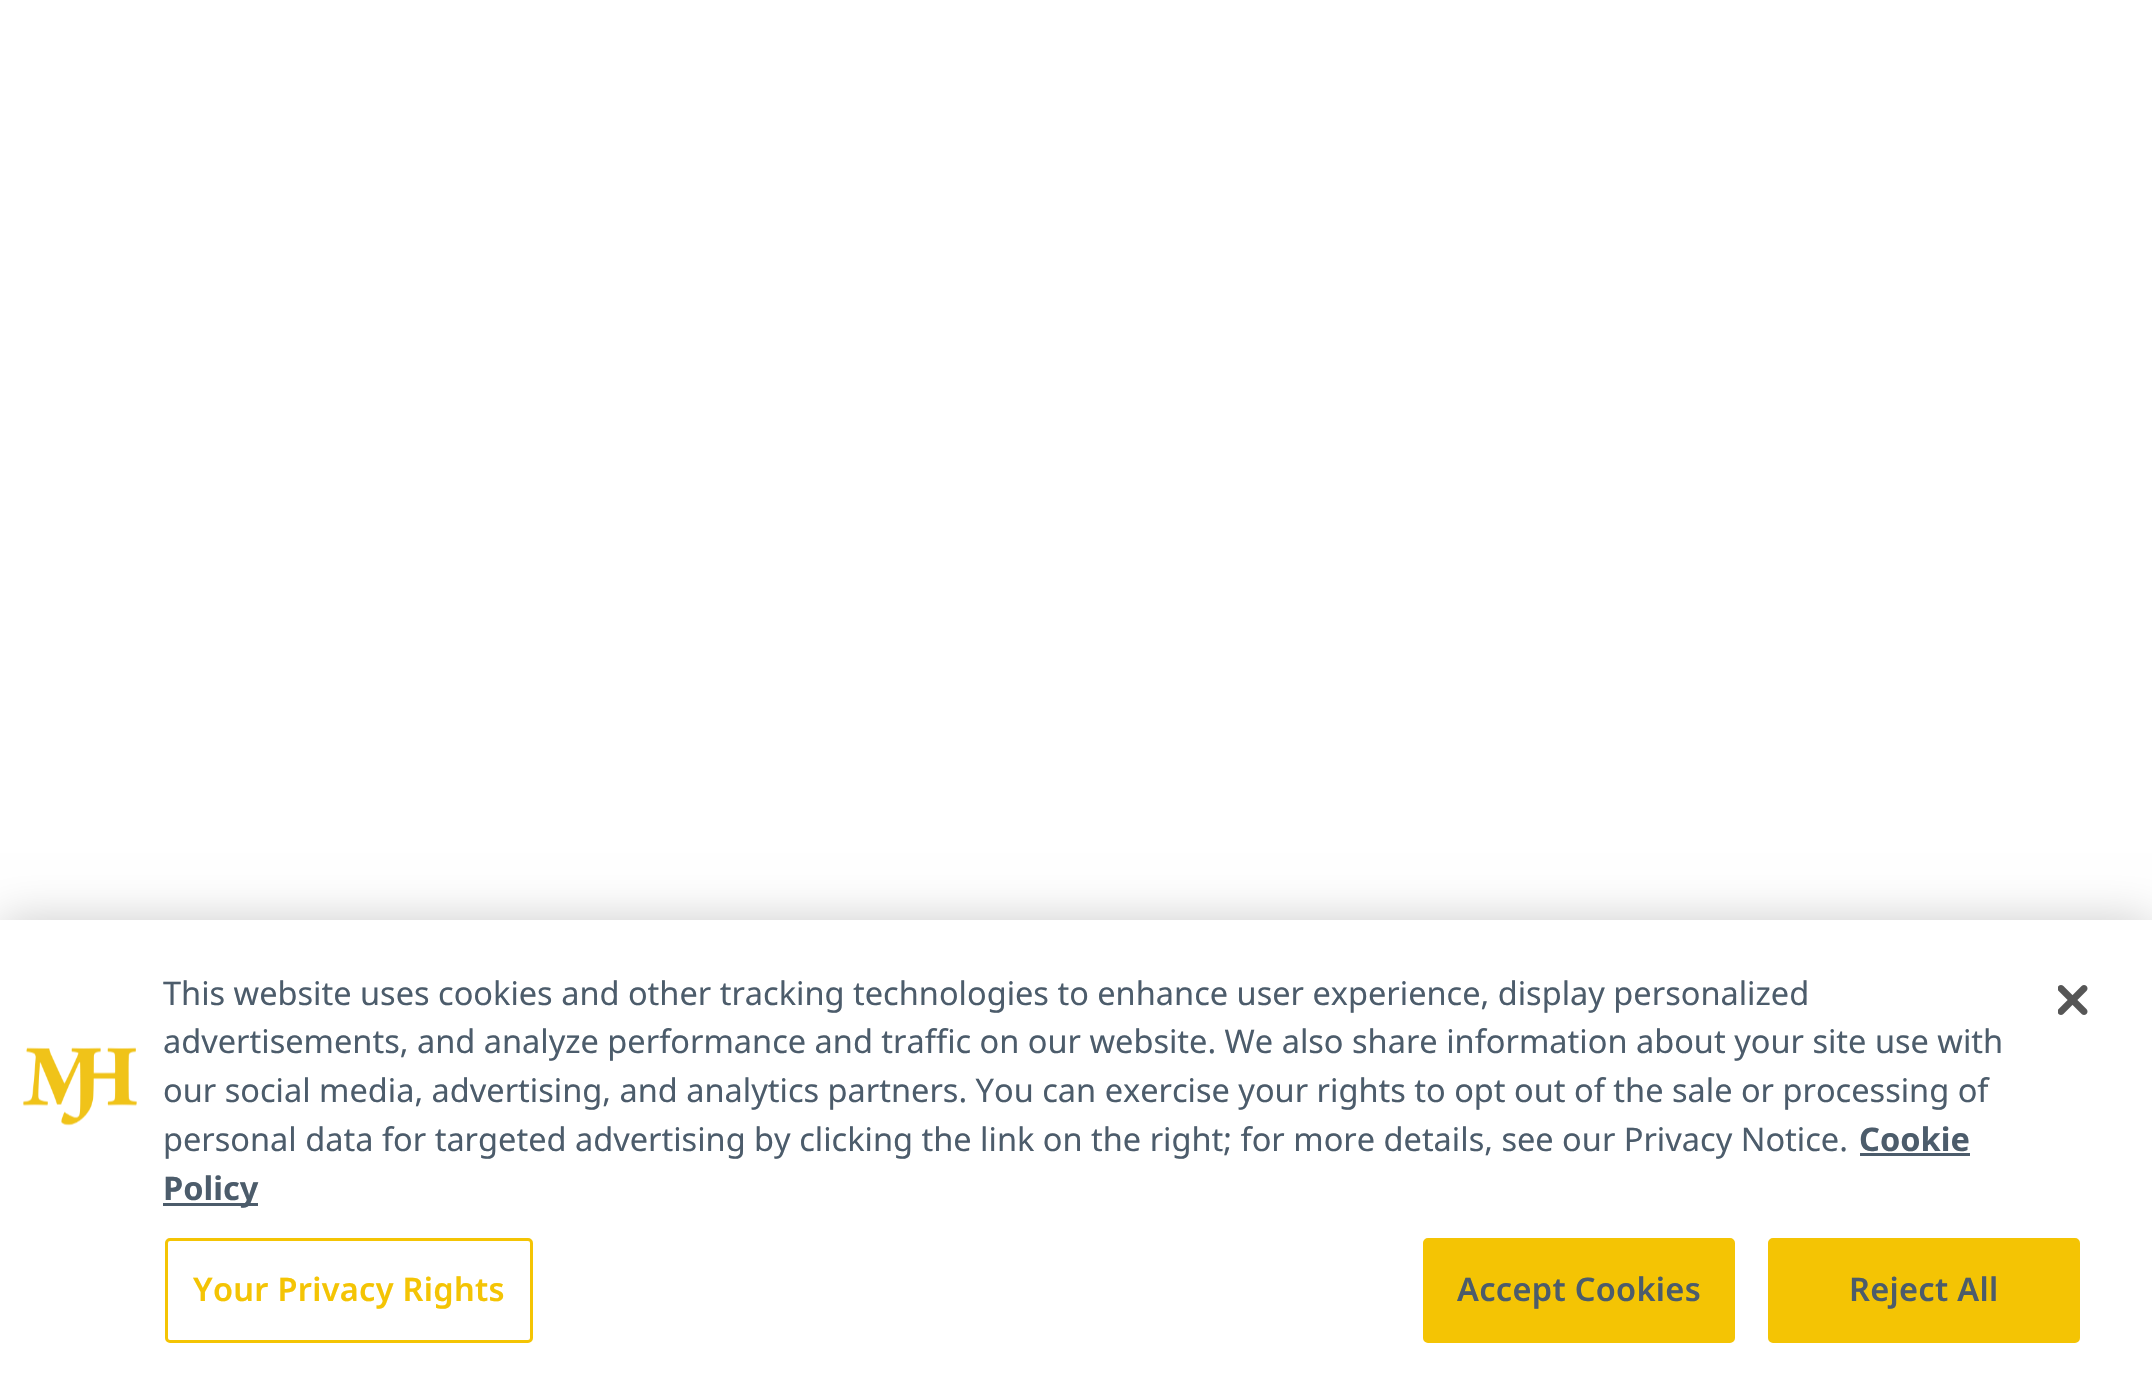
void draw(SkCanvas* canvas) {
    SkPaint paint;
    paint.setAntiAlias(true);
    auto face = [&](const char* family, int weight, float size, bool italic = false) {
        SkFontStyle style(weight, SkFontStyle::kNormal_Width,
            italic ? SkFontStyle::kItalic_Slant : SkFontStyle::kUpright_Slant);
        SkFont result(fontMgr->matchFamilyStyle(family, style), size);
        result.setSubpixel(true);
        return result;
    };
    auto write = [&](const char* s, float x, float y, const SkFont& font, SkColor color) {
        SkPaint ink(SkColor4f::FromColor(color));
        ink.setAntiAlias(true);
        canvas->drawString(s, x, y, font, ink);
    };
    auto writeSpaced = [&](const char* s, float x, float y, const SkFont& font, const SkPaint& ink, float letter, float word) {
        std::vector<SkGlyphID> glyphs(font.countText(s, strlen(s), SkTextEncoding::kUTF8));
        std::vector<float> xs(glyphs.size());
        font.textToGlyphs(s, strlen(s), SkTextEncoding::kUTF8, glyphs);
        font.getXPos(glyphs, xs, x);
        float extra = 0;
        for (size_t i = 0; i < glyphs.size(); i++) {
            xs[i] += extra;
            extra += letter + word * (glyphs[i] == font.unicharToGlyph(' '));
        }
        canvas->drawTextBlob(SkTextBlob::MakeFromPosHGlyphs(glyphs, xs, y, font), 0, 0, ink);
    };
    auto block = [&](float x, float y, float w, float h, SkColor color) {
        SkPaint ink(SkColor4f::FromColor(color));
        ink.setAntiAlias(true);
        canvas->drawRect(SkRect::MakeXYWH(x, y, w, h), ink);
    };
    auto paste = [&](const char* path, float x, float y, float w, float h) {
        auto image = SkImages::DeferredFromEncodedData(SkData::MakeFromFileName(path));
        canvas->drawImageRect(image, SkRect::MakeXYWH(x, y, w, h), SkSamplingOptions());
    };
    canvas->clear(SK_ColorWHITE);
    paint.setColor(SkColorSetARGB(51, 0, 0, 0));
    paint.setMaskFilter(SkMaskFilter::MakeBlur(kNormal_SkBlurStyle, 22.5f));
    canvas->drawRect(SkRect::MakeXYWH(0, 920, 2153, 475), paint);
    paint.setMaskFilter(nullptr);
    block(0, 920, 2152, 474, SK_ColorWHITE);
    paste("pic1.png", 23, 1047, 114, 79);
    auto kFont1 = face("Noto Sans", 400, 32.52f);
    write("This website uses cookies and other tracking technologies to enhance user experience, display personalized", 163, 1005, kFont1, SkColorSetRGB(76, 92, 107));
    write("advertisements, and analyze performance and traffic on our website. We also share information about your site use with", 163, 1053, kFont1, SkColorSetRGB(76, 92, 107));
    write("our social media, advertising, and analytics partners. You can exercise your rights to opt out of the sale or processing of", 163, 1102, kFont1, SkColorSetRGB(76, 92, 107));
    write("personal data for targeted advertising by clicking the link on the right; for more details, see our Privacy Notice.", 163, 1151, kFont1, SkColorSetRGB(76, 92, 107));
    auto kFont2 = face("Noto Sans", 700, 32.52f);
    write("Cookie", 1859, 1151, kFont2, SkColorSetRGB(76, 92, 107));
    block(1860, 1153, 110, 3, SkColorSetRGB(76, 92, 107));
    block(163, 1203, 95, 3, SkColorSetRGB(76, 92, 107));
    write("Policy", 163, 1200, kFont2, SkColorSetRGB(76, 92, 107));
    paint.setStyle(SkPaint::kStroke_Style);
    paint.setStrokeWidth(3);
    paint.setColor(SkColorSetRGB(244, 196, 4));
    canvas->drawRoundRect(SkRect::MakeXYWH(166.5f, 1239.5f, 365, 102), 3.5f, 3.5f, paint);
    auto kFont3 = face("Noto Sans", 600, 32.52f);
    paint.setStyle(SkPaint::kFill_Style);
    writeSpaced("Your Privacy Rights", 193, 1301, kFont3, paint, 0.3f, 0);
    canvas->drawRoundRect(SkRect::MakeXYWH(1424.5f, 1239.5f, 309, 102), 3.5f, 3.5f, paint);
    paint.setStyle(SkPaint::kStroke_Style);
    canvas->drawRoundRect(SkRect::MakeXYWH(1424.5f, 1239.5f, 309, 102), 3.5f, 3.5f, paint);
    paint.setStyle(SkPaint::kFill_Style);
    paint.setColor(SkColorSetRGB(76, 92, 107));
    writeSpaced("Accept Cookies", 1457, 1301, kFont3, paint, 0.3f, 0);
    paint.setColor(SkColorSetRGB(244, 196, 4));
    canvas->drawRoundRect(SkRect::MakeXYWH(1769.5f, 1239.5f, 309, 102), 3.5f, 3.5f, paint);
    paint.setStyle(SkPaint::kStroke_Style);
    canvas->drawRoundRect(SkRect::MakeXYWH(1769.5f, 1239.5f, 309, 102), 3.5f, 3.5f, paint);
    paint.setStyle(SkPaint::kFill_Style);
    paint.setColor(SkColorSetRGB(76, 92, 107));
    writeSpaced("Reject All", 1849, 1301, kFont3, paint, 0.3f, 0);
    paste("pic2.png", 2058, 985, 30, 30);
}
